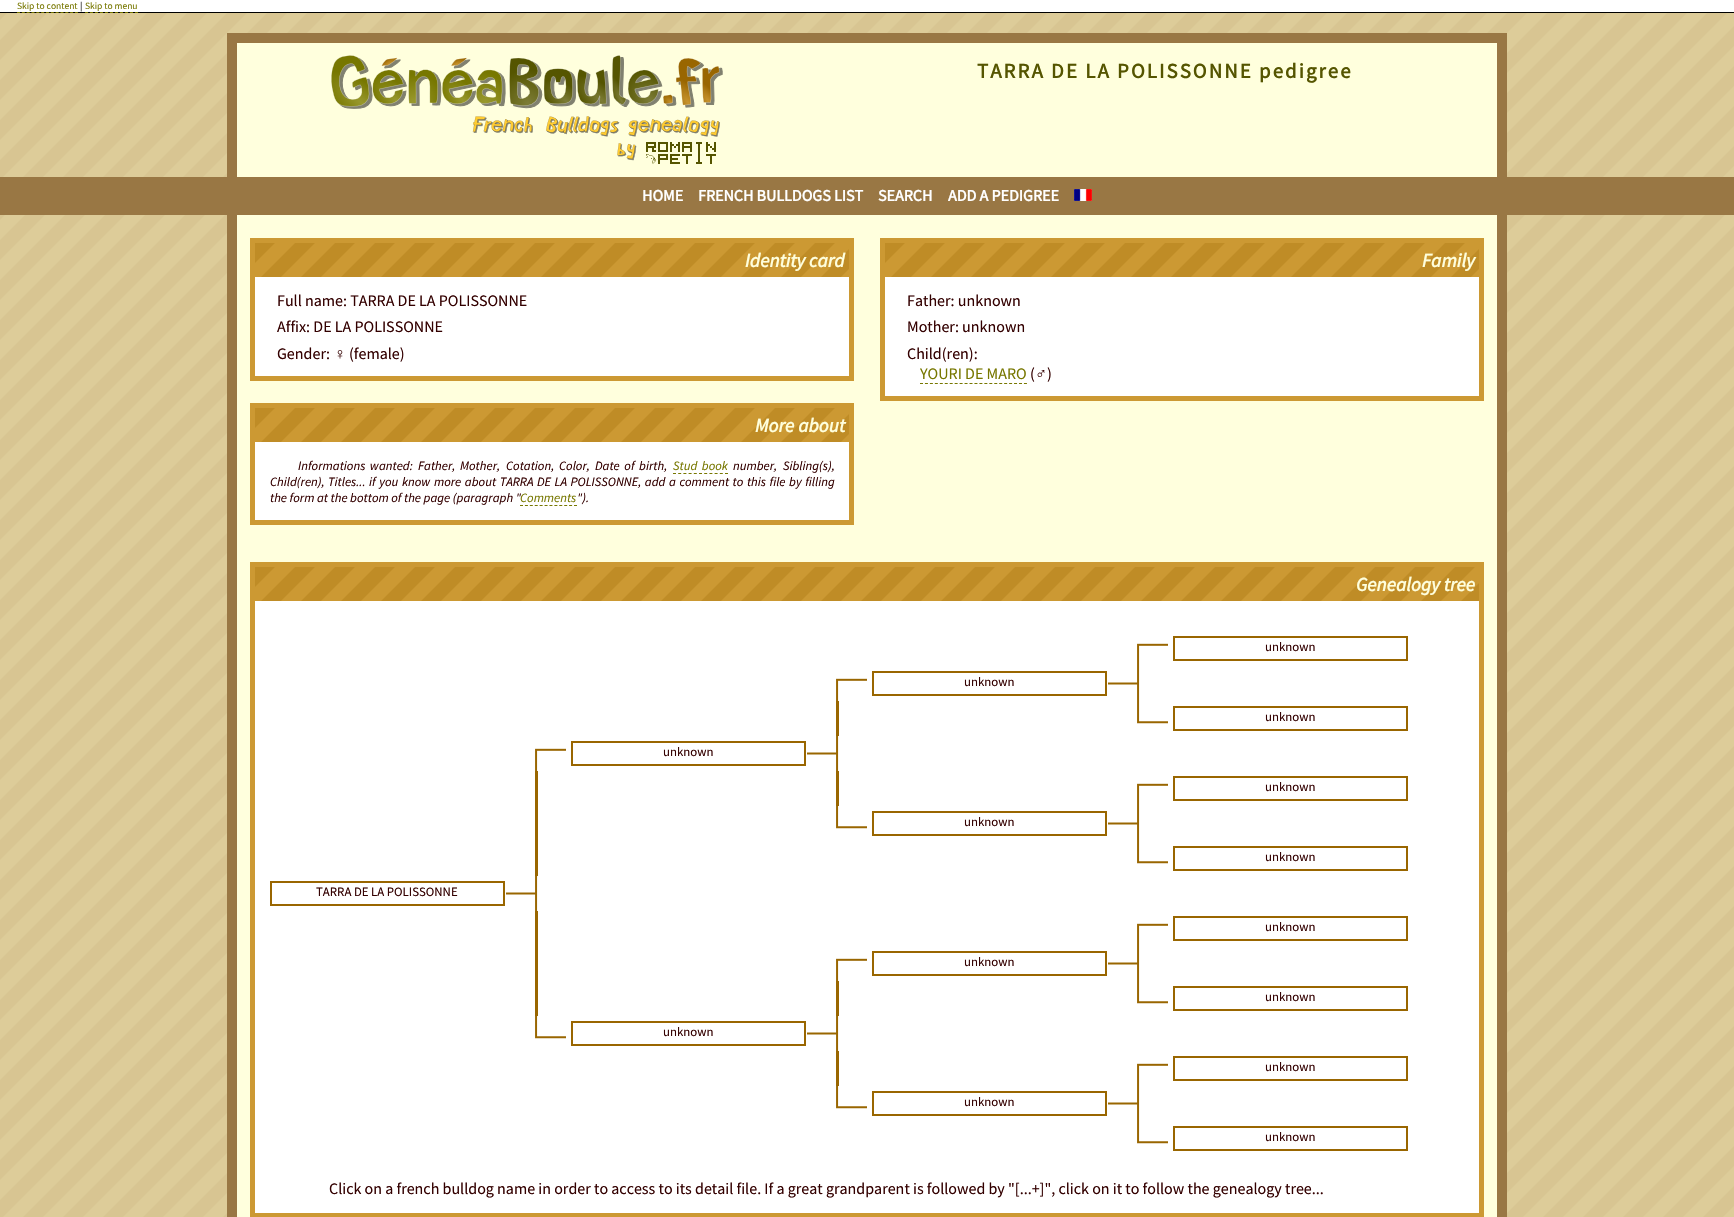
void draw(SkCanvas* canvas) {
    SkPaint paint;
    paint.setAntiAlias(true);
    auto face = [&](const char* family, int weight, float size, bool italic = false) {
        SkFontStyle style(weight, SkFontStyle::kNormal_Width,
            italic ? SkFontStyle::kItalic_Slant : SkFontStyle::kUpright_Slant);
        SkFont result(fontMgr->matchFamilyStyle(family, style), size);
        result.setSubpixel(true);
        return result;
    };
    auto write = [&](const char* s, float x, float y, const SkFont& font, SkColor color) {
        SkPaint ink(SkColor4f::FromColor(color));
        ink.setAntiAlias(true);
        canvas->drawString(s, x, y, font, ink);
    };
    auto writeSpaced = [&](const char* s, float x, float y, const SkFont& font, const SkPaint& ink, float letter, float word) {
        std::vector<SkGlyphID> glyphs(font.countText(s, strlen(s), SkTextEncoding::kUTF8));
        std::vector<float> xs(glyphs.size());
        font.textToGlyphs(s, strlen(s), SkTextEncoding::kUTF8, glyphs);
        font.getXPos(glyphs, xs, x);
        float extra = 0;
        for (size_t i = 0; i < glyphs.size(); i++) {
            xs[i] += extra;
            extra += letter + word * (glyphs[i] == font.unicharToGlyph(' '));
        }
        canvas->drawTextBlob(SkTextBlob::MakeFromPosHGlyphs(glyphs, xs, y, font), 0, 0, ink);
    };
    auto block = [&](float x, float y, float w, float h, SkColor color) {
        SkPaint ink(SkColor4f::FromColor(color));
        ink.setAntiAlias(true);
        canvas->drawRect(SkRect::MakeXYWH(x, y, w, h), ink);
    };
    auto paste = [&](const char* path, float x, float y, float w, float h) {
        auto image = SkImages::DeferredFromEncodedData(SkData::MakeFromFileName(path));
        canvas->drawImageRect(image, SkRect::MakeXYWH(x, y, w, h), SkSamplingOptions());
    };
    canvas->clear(SK_ColorWHITE);
    paste("pic1.png", 0, 13, 1734, 1204);
    block(0, 12, 1734, 1, SK_ColorBLACK);
    auto kFont1 = face("Source Sans Pro", 400, 9.5f);
    write("Skip to content", 17, 9, kFont1, SkColorSetRGB(119, 119, 0));
    paint.setStyle(SkPaint::kStroke_Style);
    paint.setStrokeWidth(1);
    paint.setColor(SkColorSetRGB(119, 119, 0));
    paint.setPathEffect(SkDashPathEffect::Make({{3, 1.83f}}, 0));
    canvas->drawPath(SkPathBuilder().moveTo(17, 12.5f).lineTo(78, 12.5f).detach(), paint);
    paint.setPathEffect(nullptr);
    write("|", 80, 9, kFont1, SK_ColorBLACK);
    write("Skip to menu", 85, 9, kFont1, SkColorSetRGB(119, 119, 0));
    paint.setPathEffect(SkDashPathEffect::Make({{3, 2}}, 0));
    canvas->drawPath(SkPathBuilder().moveTo(85, 12.5f).lineTo(138, 12.5f).detach(), paint);
    paint.setPathEffect(nullptr);
    block(237, 43, 1260, 134, SkColorSetRGB(255, 255, 221));
    block(237, 33, 1260, 10, SkColorSetRGB(153, 119, 68));
    block(1497, 33, 10, 144, SkColorSetRGB(153, 119, 68));
    block(227, 33, 10, 144, SkColorSetRGB(153, 119, 68));
    paste("pic2.png", 331, 55, 392, 109);
    auto kFont2 = face("Source Sans Pro", 700, 20.75f);
    paint.setStyle(SkPaint::kFill_Style);
    paint.setColor(SkColorSetRGB(85, 85, 0));
    writeSpaced("TARRA DE LA POLISSONNE pedigree", 977, 78, kFont2, paint, 2.1f, 0);
    block(0, 177, 1734, 38, SkColorSetRGB(153, 119, 68));
    auto kFont3 = face("Source Sans Pro", 700, 16);
    write("HOME", 642, 201, kFont3, SK_ColorWHITE);
    write("FRENCH BULLDOGS LIST", 698, 201, kFont3, SK_ColorWHITE);
    write("SEARCH", 878, 201, kFont3, SK_ColorWHITE);
    write("ADD A PEDIGREE", 948, 201, kFont3, SK_ColorWHITE);
    paste("pic3.png", 1074, 189, 18, 12);
    block(237, 215, 1260, 1002, SkColorSetRGB(255, 255, 221));
    block(1497, 215, 10, 1002, SkColorSetRGB(153, 119, 68));
    block(227, 215, 10, 1002, SkColorSetRGB(153, 119, 68));
    block(255, 277, 594, 99, SK_ColorWHITE);
    paint.setStyle(SkPaint::kStroke_Style);
    paint.setStrokeWidth(5);
    paint.setColor(SkColorSetRGB(204, 153, 51));
    canvas->drawRect(SkRect::MakeXYWH(252.5f, 240.5f, 599, 138), paint);
    paste("pic4.png", 255, 243, 594, 34);
    auto kFont4 = face("Source Sans Pro", 700, 19.25f, true);
    write("Identity card", 745, 267, kFont4, SkColorSetRGB(255, 255, 221));
    auto kFont5 = face("Source Sans Pro", 400, 16);
    write("Full name: TARRA DE LA POLISSONNE", 277, 306, kFont5, SkColorSetRGB(51, 0, 0));
    write("Affix: DE LA POLISSONNE", 277, 332, kFont5, SkColorSetRGB(51, 0, 0));
    write("Gender:", 277, 359, kFont5, SkColorSetRGB(51, 0, 0));
    auto kFont6 = face("Liberation Sans", 400, 16);
    write("♀", 334, 359, kFont6, SkColorSetRGB(51, 0, 0));
    write("(female)", 349, 359, kFont5, SkColorSetRGB(51, 0, 0));
    block(255, 442, 594, 78, SK_ColorWHITE);
    canvas->drawRect(SkRect::MakeXYWH(252.5f, 405.5f, 599, 117), paint);
    paste("pic4.png", 255, 408, 594, 34);
    write("More about", 755, 432, kFont4, SkColorSetRGB(255, 255, 221));
    auto kFont7 = face("Source Sans Pro", 400, 12.8f, true);
    paint.setStyle(SkPaint::kFill_Style);
    paint.setColor(SkColorSetRGB(51, 0, 0));
    writeSpaced("Informations wanted:", 298, 470, kFont7, paint, 0, 2);
    write("Father,", 418, 470, kFont7, SkColorSetRGB(51, 0, 0));
    write("Mother,", 460, 470, kFont7, SkColorSetRGB(51, 0, 0));
    write("Cotation,", 506, 470, kFont7, SkColorSetRGB(51, 0, 0));
    write("Color,", 559, 470, kFont7, SkColorSetRGB(51, 0, 0));
    writeSpaced("Date of birth,", 595, 470, kFont7, paint, 0, 2);
    paint.setColor(SkColorSetRGB(119, 119, 0));
    writeSpaced("Stud book", 673, 470, kFont7, paint, 0, 2);
    paint.setStyle(SkPaint::kStroke_Style);
    paint.setStrokeWidth(1);
    paint.setPathEffect(SkDashPathEffect::Make({{3, 2.2f}}, 0));
    canvas->drawPath(SkPathBuilder().moveTo(673, 473.5f).lineTo(728, 473.5f).detach(), paint);
    paint.setPathEffect(nullptr);
    write("number,", 733, 470, kFont7, SkColorSetRGB(51, 0, 0));
    write("Sibling(s),", 783, 470, kFont7, SkColorSetRGB(51, 0, 0));
    write("Child(ren),", 270, 486, kFont7, SkColorSetRGB(51, 0, 0));
    paint.setStyle(SkPaint::kFill_Style);
    paint.setColor(SkColorSetRGB(51, 0, 0));
    writeSpaced("Titles... if you know more about TARRA DE LA POLISSONNE, add a comment to this file by filling", 328, 486, kFont7, paint, 0, 1);
    write("the form at the bottom of the page (paragraph \"", 270, 502, kFont7, SkColorSetRGB(51, 0, 0));
    write("Comments", 520, 502, kFont7, SkColorSetRGB(119, 119, 0));
    paint.setStyle(SkPaint::kStroke_Style);
    paint.setColor(SkColorSetRGB(119, 119, 0));
    paint.setPathEffect(SkDashPathEffect::Make({{3, 1.91f}}, 0));
    canvas->drawPath(SkPathBuilder().moveTo(520, 505.5f).lineTo(577, 505.5f).detach(), paint);
    paint.setPathEffect(nullptr);
    write("\").", 577, 502, kFont7, SkColorSetRGB(51, 0, 0));
    block(885, 277, 594, 119, SK_ColorWHITE);
    paint.setStrokeWidth(5);
    paint.setColor(SkColorSetRGB(204, 153, 51));
    canvas->drawRect(SkRect::MakeXYWH(882.5f, 240.5f, 599, 158), paint);
    paste("pic4.png", 885, 243, 594, 34);
    write("Family", 1422, 267, kFont4, SkColorSetRGB(255, 255, 221));
    write("Father: unknown", 907, 306, kFont5, SkColorSetRGB(51, 0, 0));
    write("Mother: unknown", 907, 332, kFont5, SkColorSetRGB(51, 0, 0));
    write("Child(ren):", 907, 359, kFont5, SkColorSetRGB(51, 0, 0));
    write("YOURI DE MARO", 920, 379, kFont5, SkColorSetRGB(119, 119, 0));
    paint.setStrokeWidth(1);
    paint.setColor(SkColorSetRGB(119, 119, 0));
    paint.setPathEffect(SkDashPathEffect::Make({{3, 1.95f}}, 0));
    canvas->drawPath(SkPathBuilder().moveTo(920, 383.5f).lineTo(1027, 383.5f).detach(), paint);
    paint.setPathEffect(nullptr);
    write("(", 1030, 379, kFont5, SkColorSetRGB(51, 0, 0));
    write("♂", 1035, 379, kFont6, SkColorSetRGB(51, 0, 0));
    write(")", 1047, 379, kFont5, SkColorSetRGB(51, 0, 0));
    block(255, 601, 1224, 612, SK_ColorWHITE);
    paint.setStrokeWidth(5);
    paint.setColor(SkColorSetRGB(204, 153, 51));
    canvas->drawRect(SkRect::MakeXYWH(252.5f, 564.5f, 1229, 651), paint);
    paste("pic5.png", 255, 567, 1224, 34);
    write("Genealogy tree", 1356, 591, kFont4, SkColorSetRGB(255, 255, 221));
    paste("pic6.png", 1137, 643, 31, 23);
    paint.setStrokeWidth(2);
    paint.setColor(SkColorSetRGB(153, 102, 0));
    canvas->drawRect(SkRect::MakeXYWH(1174, 637, 233, 23), paint);
    auto kFont8 = face("Source Sans Pro", 400, 12.8f);
    write("unknown", 1265, 651, kFont8, SkColorSetRGB(51, 0, 0));
    paste("pic6.png", 836, 678, 31, 23);
    canvas->drawRect(SkRect::MakeXYWH(873, 672, 233, 23), paint);
    write("unknown", 964, 686, kFont8, SkColorSetRGB(51, 0, 0));
    paste("pic7.png", 1108, 666, 32, 35);
    block(836, 701, 3, 35, SkColorSetRGB(153, 102, 0));
    paste("pic8.png", 1137, 701, 31, 23);
    canvas->drawRect(SkRect::MakeXYWH(1174, 707, 233, 23), paint);
    write("unknown", 1265, 721, kFont8, SkColorSetRGB(51, 0, 0));
    paste("pic6.png", 535, 748, 31, 23);
    canvas->drawRect(SkRect::MakeXYWH(572, 742, 233, 23), paint);
    write("unknown", 663, 756, kFont8, SkColorSetRGB(51, 0, 0));
    paste("pic7.png", 807, 736, 32, 35);
    block(535, 771, 3, 105, SkColorSetRGB(153, 102, 0));
    block(836, 771, 3, 35, SkColorSetRGB(153, 102, 0));
    paste("pic6.png", 1137, 783, 31, 23);
    canvas->drawRect(SkRect::MakeXYWH(1174, 777, 233, 23), paint);
    write("unknown", 1265, 791, kFont8, SkColorSetRGB(51, 0, 0));
    paste("pic8.png", 836, 806, 31, 23);
    canvas->drawRect(SkRect::MakeXYWH(873, 812, 233, 23), paint);
    write("unknown", 964, 826, kFont8, SkColorSetRGB(51, 0, 0));
    paste("pic7.png", 1108, 806, 32, 35);
    paste("pic8.png", 1137, 841, 31, 23);
    canvas->drawRect(SkRect::MakeXYWH(1174, 847, 233, 23), paint);
    write("unknown", 1265, 861, kFont8, SkColorSetRGB(51, 0, 0));
    canvas->drawRect(SkRect::MakeXYWH(271, 882, 233, 23), paint);
    write("TARRA DE LA POLISSONNE", 316, 896, kFont8, SkColorSetRGB(51, 0, 0));
    paste("pic7.png", 506, 876, 32, 35);
    block(535, 911, 3, 105, SkColorSetRGB(153, 102, 0));
    paste("pic6.png", 1137, 923, 31, 23);
    canvas->drawRect(SkRect::MakeXYWH(1174, 917, 233, 23), paint);
    write("unknown", 1265, 931, kFont8, SkColorSetRGB(51, 0, 0));
    paste("pic6.png", 836, 958, 31, 23);
    canvas->drawRect(SkRect::MakeXYWH(873, 952, 233, 23), paint);
    write("unknown", 964, 966, kFont8, SkColorSetRGB(51, 0, 0));
    paste("pic7.png", 1108, 946, 32, 35);
    block(836, 981, 3, 35, SkColorSetRGB(153, 102, 0));
    paste("pic8.png", 1137, 981, 31, 23);
    canvas->drawRect(SkRect::MakeXYWH(1174, 987, 233, 23), paint);
    write("unknown", 1265, 1001, kFont8, SkColorSetRGB(51, 0, 0));
    paste("pic8.png", 535, 1016, 31, 23);
    canvas->drawRect(SkRect::MakeXYWH(572, 1022, 233, 23), paint);
    write("unknown", 663, 1036, kFont8, SkColorSetRGB(51, 0, 0));
    paste("pic7.png", 807, 1016, 32, 35);
    block(836, 1051, 3, 35, SkColorSetRGB(153, 102, 0));
    paste("pic6.png", 1137, 1063, 31, 23);
    canvas->drawRect(SkRect::MakeXYWH(1174, 1057, 233, 23), paint);
    write("unknown", 1265, 1071, kFont8, SkColorSetRGB(51, 0, 0));
    paste("pic8.png", 836, 1086, 31, 23);
    canvas->drawRect(SkRect::MakeXYWH(873, 1092, 233, 23), paint);
    write("unknown", 964, 1106, kFont8, SkColorSetRGB(51, 0, 0));
    paste("pic7.png", 1108, 1086, 32, 35);
    paste("pic8.png", 1137, 1121, 31, 23);
    canvas->drawRect(SkRect::MakeXYWH(1174, 1127, 233, 23), paint);
    write("unknown", 1265, 1141, kFont8, SkColorSetRGB(51, 0, 0));
    write("Click on a french bulldog name in order to access to its detail file. If a great grandparent is followed by \"[...+]\", click on it to follow the genealogy tree...", 329, 1194, kFont5, SkColorSetRGB(51, 0, 0));
}
